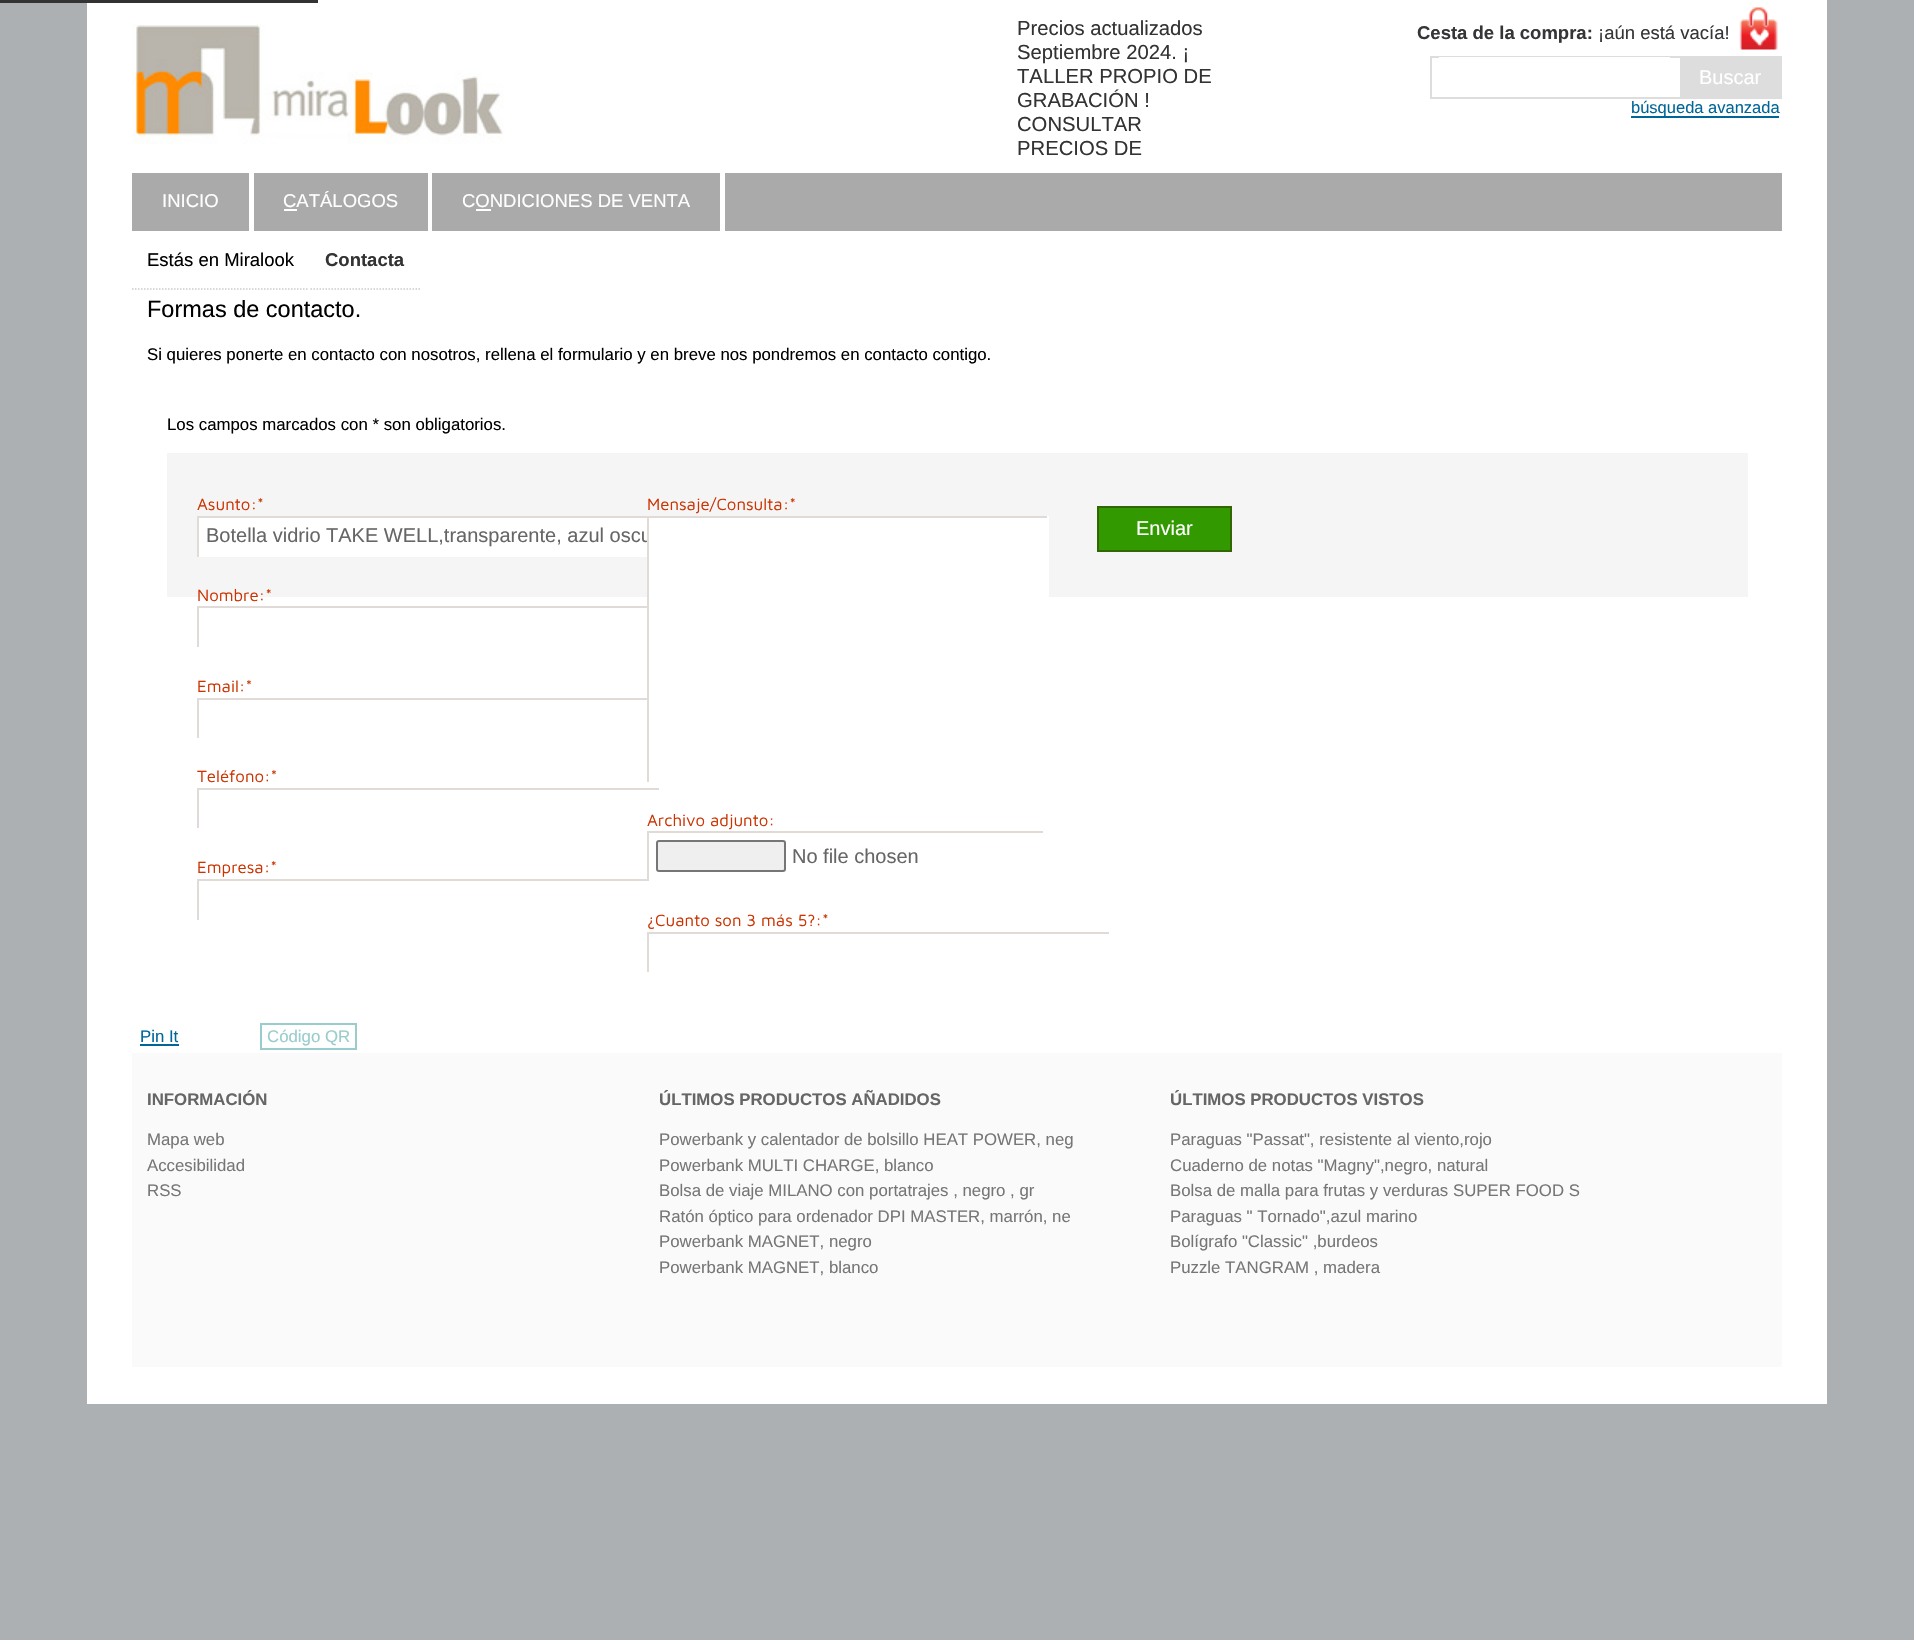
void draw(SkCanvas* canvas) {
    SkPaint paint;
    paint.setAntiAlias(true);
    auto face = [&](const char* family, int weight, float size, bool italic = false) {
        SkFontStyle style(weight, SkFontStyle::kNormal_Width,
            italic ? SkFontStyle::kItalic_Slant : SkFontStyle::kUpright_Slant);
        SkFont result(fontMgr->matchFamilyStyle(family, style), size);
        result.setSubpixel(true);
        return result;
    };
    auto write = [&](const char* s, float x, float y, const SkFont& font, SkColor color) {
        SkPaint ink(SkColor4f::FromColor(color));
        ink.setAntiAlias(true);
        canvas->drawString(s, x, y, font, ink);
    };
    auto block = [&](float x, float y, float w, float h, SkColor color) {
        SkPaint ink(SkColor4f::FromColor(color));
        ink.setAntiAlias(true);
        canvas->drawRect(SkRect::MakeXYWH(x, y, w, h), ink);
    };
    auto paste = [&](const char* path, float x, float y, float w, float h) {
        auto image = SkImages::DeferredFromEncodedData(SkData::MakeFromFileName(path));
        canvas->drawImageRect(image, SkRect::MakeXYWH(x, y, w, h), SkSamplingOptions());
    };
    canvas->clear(SkColorSetRGB(173, 176, 178));
    block(87, 0, 1740, 1404, SK_ColorWHITE);
    block(0, 0, 318, 3, SkColorSetRGB(51, 51, 51));
    paste("pic1.png", 132, 24, 372, 120);
    auto kFont1 = face("Liberation Sans", 400, 20.25f);
    write("Precios actualizados", 1017, 35, kFont1, SkColorSetRGB(51, 51, 51));
    write("Septiembre 2024. ¡", 1017, 59, kFont1, SkColorSetRGB(51, 51, 51));
    write("TALLER PROPIO DE", 1017, 83, kFont1, SkColorSetRGB(51, 51, 51));
    write("GRABACIÓN !", 1017, 107, kFont1, SkColorSetRGB(51, 51, 51));
    write("CONSULTAR", 1017, 131, kFont1, SkColorSetRGB(51, 51, 51));
    write("PRECIOS DE", 1017, 155, kFont1, SkColorSetRGB(51, 51, 51));
    paste("pic2.png", 1739, 7, 39, 43);
    auto kFont2 = face("Liberation Sans", 700, 18.5f);
    write("Cesta de la compra:", 1417, 39, kFont2, SkColorSetRGB(54, 54, 57));
    auto kFont3 = face("Liberation Sans", 400, 18.5f);
    write("¡aún está vacía!", 1598, 39, kFont3, SkColorSetRGB(54, 54, 57));
    paint.setStyle(SkPaint::kStroke_Style);
    paint.setStrokeWidth(2);
    paint.setColor(SkColorSetRGB(221, 221, 221));
    canvas->drawRect(SkRect::MakeXYWH(1431, 57, 350, 41), paint);
    block(1439, 57, 231, 1, SK_ColorWHITE);
    block(1680, 58, 100, 39, SkColorSetRGB(221, 221, 221));
    auto kFont4 = face("Liberation Sans", 400, 20);
    write("Buscar", 1699, 84, kFont4, SK_ColorWHITE);
    block(1631, 116, 148, 2, SkColorSetRGB(0, 102, 153));
    auto kFont5 = face("Liberation Sans", 400, 16.5f);
    write("búsqueda avanzada", 1631, 113, kFont5, SkColorSetRGB(0, 102, 153));
    block(132, 173, 1650, 58, SkColorSetRGB(170, 170, 170));
    block(249, 173, 5, 58, SK_ColorWHITE);
    write("INICIO", 162, 207, kFont3, SK_ColorWHITE);
    block(428, 173, 4, 58, SK_ColorWHITE);
    write("CATÁLOGOS", 283, 207, kFont3, SK_ColorWHITE);
    block(284, 209, 13, 2, SK_ColorWHITE);
    block(720, 173, 5, 58, SK_ColorWHITE);
    write("CONDICIONES DE VENTA", 462, 207, kFont3, SK_ColorWHITE);
    block(476, 209, 15, 2, SK_ColorWHITE);
    write("Estás en Miralook", 147, 266, kFont3, SK_ColorBLACK);
    paint.setStrokeWidth(1.5f);
    paint.setColor(SkColorSetRGB(204, 204, 204));
    paint.setPathEffect(SkDashPathEffect::Make({{1.5f, 1.5f}}, 0));
    canvas->drawPath(SkPathBuilder().moveTo(132, 289).lineTo(309, 289).detach(), paint);
    paint.setPathEffect(nullptr);
    write("Contacta", 325, 266, kFont2, SkColorSetRGB(51, 51, 51));
    paint.setPathEffect(SkDashPathEffect::Make({{1.5f, 1.5f}}, 0));
    canvas->drawPath(SkPathBuilder().moveTo(310.5f, 289).lineTo(420, 289).detach(), paint);
    paint.setPathEffect(nullptr);
    auto kFont6 = face("Liberation Sans", 400, 23.5f);
    write("Formas de contacto.", 147, 317, kFont6, SK_ColorBLACK);
    auto kFont7 = face("Liberation Sans", 400, 16.8f);
    write("Si quieres ponerte en contacto con nosotros, rellena el formulario y en breve nos pondremos en contacto contigo.", 147, 360, kFont7, SK_ColorBLACK);
    write("Los campos marcados con * son obligatorios.", 167, 430, kFont7, SK_ColorBLACK);
    block(167, 453, 1581, 144, SkColorSetRGB(245, 245, 245));
    auto kFont8 = face("Maven Pro", 400, 16.8f);
    write("Asunto:*", 197, 510, kFont8, SkColorSetRGB(204, 51, 0));
    block(199, 518, 448, 39, SK_ColorWHITE);
    block(197, 516, 852, 2, SkColorSetRGB(224, 219, 214));
    block(197, 516, 2, 41, SkColorSetRGB(224, 219, 214));
    write("Botella vidrio TAKE WELL,transparente, azul oscu", 206, 542, kFont4, SkColorSetRGB(102, 102, 102));
    write("Nombre:*", 197, 601, kFont8, SkColorSetRGB(204, 51, 0));
    block(197, 606, 450, 2, SkColorSetRGB(224, 219, 214));
    block(197, 606, 2, 41, SkColorSetRGB(224, 219, 214));
    write("Email:*", 197, 692, kFont8, SkColorSetRGB(204, 51, 0));
    block(197, 698, 450, 2, SkColorSetRGB(224, 219, 214));
    block(197, 698, 2, 40, SkColorSetRGB(224, 219, 214));
    write("Teléfono:*", 197, 782, kFont8, SkColorSetRGB(204, 51, 0));
    block(197, 788, 463, 2, SkColorSetRGB(224, 219, 214));
    block(659, 788, 1, 2, SK_ColorWHITE);
    block(197, 788, 2, 40, SkColorSetRGB(224, 219, 214));
    write("Empresa:*", 197, 873, kFont8, SkColorSetRGB(204, 51, 0));
    block(197, 879, 450, 2, SkColorSetRGB(224, 219, 214));
    block(197, 879, 2, 41, SkColorSetRGB(224, 219, 214));
    write("Mensaje/Consulta:*", 647, 510, kFont8, SkColorSetRGB(204, 51, 0));
    block(649, 518, 398, 79, SK_ColorWHITE);
    block(1047, 516, 2, 81, SK_ColorWHITE);
    block(647, 516, 2, 266, SkColorSetRGB(224, 219, 214));
    write("Archivo adjunto:", 647, 826, kFont8, SkColorSetRGB(204, 51, 0));
    block(647, 831, 397, 2, SkColorSetRGB(224, 219, 214));
    block(1043, 831, 1, 2, SK_ColorWHITE);
    block(647, 831, 2, 50, SkColorSetRGB(224, 219, 214));
    paint.setStyle(SkPaint::kFill_Style);
    paint.setColor(SkColorSetRGB(239, 239, 239));
    canvas->drawRoundRect(SkRect::MakeXYWH(657, 841, 128, 30), 2, 2, paint);
    paint.setStyle(SkPaint::kStroke_Style);
    paint.setStrokeWidth(2);
    paint.setColor(SkColorSetRGB(118, 118, 118));
    canvas->drawRoundRect(SkRect::MakeXYWH(657, 841, 128, 30), 2, 2, paint);
    write("No file chosen", 792, 863, kFont4, SkColorSetRGB(102, 102, 102));
    write("¿Cuanto son 3 más 5?:*", 647, 926, kFont8, SkColorSetRGB(204, 51, 0));
    block(647, 932, 463, 2, SkColorSetRGB(224, 219, 214));
    block(1109, 932, 1, 2, SK_ColorWHITE);
    block(647, 932, 2, 40, SkColorSetRGB(224, 219, 214));
    paint.setStyle(SkPaint::kFill_Style);
    paint.setColor(SkColorSetRGB(51, 153, 0));
    canvas->drawRect(SkRect::MakeXYWH(1098, 507, 133, 44), paint);
    paint.setStyle(SkPaint::kStroke_Style);
    paint.setColor(SkColorSetRGB(51, 102, 0));
    canvas->drawRect(SkRect::MakeXYWH(1098, 507, 133, 44), paint);
    write("Enviar", 1136, 535, kFont4, SK_ColorWHITE);
    write("Pin It", 140, 1042, kFont7, SkColorSetRGB(0, 102, 153));
    block(140, 1044, 39, 2, SkColorSetRGB(0, 102, 153));
    paint.setColor(SkColorSetRGB(153, 204, 204));
    canvas->drawRect(SkRect::MakeXYWH(261, 1024, 95, 25), paint);
    write("Código QR", 267, 1042, kFont7, SkColorSetRGB(153, 204, 204));
    block(132, 1053, 1650, 314, SkColorSetRGB(250, 250, 250));
    auto kFont9 = face("Liberation Sans", 700, 16.8f);
    write("INFORMACIÓN", 147, 1105, kFont9, SkColorSetRGB(102, 102, 102));
    write("Mapa web", 147, 1145, kFont7, SkColorSetRGB(118, 118, 118));
    write("Accesibilidad", 147, 1171, kFont7, SkColorSetRGB(118, 118, 118));
    write("RSS", 147, 1196, kFont7, SkColorSetRGB(118, 118, 118));
    write("ÚLTIMOS PRODUCTOS AÑADIDOS", 659, 1105, kFont9, SkColorSetRGB(102, 102, 102));
    write("Powerbank y calentador de bolsillo HEAT POWER, neg", 659, 1145, kFont7, SkColorSetRGB(118, 118, 118));
    write("Powerbank MULTI CHARGE, blanco", 659, 1171, kFont7, SkColorSetRGB(118, 118, 118));
    write("Bolsa de viaje MILANO con portatrajes , negro , gr", 659, 1196, kFont7, SkColorSetRGB(118, 118, 118));
    write("Ratón óptico para ordenador DPI MASTER, marrón, ne", 659, 1222, kFont7, SkColorSetRGB(118, 118, 118));
    write("Powerbank MAGNET, negro", 659, 1247, kFont7, SkColorSetRGB(118, 118, 118));
    write("Powerbank MAGNET, blanco", 659, 1273, kFont7, SkColorSetRGB(118, 118, 118));
    write("ÚLTIMOS PRODUCTOS VISTOS", 1170, 1105, kFont9, SkColorSetRGB(102, 102, 102));
    write("Paraguas \"Passat\", resistente al viento,rojo", 1170, 1145, kFont7, SkColorSetRGB(118, 118, 118));
    write("Cuaderno de notas \"Magny\",negro, natural", 1170, 1171, kFont7, SkColorSetRGB(118, 118, 118));
    write("Bolsa de malla para frutas y verduras SUPER FOOD S", 1170, 1196, kFont7, SkColorSetRGB(118, 118, 118));
    write("Paraguas \" Tornado\",azul marino", 1170, 1222, kFont7, SkColorSetRGB(118, 118, 118));
    write("Bolígrafo \"Classic\" ,burdeos", 1170, 1247, kFont7, SkColorSetRGB(118, 118, 118));
    write("Puzzle TANGRAM , madera", 1170, 1273, kFont7, SkColorSetRGB(118, 118, 118));
}
